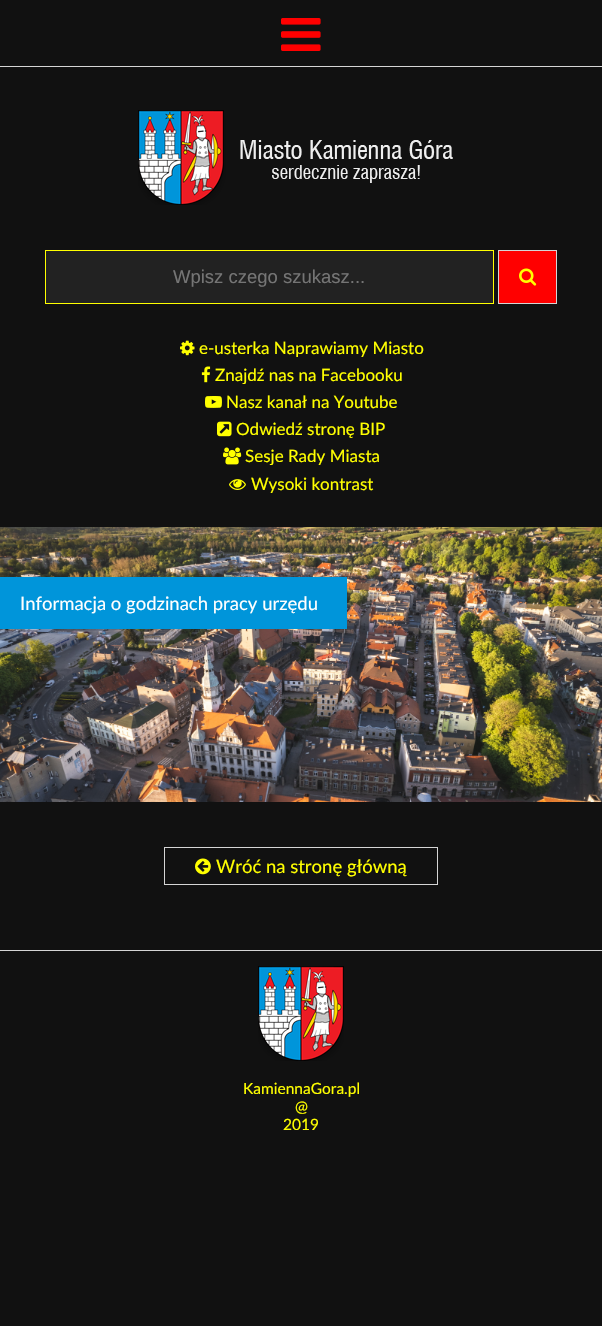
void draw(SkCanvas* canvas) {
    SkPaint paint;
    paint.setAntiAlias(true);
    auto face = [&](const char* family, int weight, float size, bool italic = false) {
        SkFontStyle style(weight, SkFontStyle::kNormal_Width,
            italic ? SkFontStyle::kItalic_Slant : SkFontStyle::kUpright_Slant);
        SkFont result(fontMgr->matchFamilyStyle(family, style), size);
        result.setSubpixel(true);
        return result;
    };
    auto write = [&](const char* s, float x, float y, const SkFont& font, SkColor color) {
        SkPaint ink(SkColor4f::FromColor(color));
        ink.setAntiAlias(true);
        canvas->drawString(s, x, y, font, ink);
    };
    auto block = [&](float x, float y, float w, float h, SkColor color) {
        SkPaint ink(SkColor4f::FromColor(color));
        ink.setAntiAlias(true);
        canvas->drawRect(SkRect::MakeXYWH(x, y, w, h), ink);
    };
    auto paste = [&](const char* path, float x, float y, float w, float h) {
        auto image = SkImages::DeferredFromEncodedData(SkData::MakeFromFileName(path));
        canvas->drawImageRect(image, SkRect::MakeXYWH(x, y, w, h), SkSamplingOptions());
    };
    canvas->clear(SkColorSetRGB(17, 17, 17));
    block(0, 66, 602, 1, SkColorSetRGB(213, 213, 213));
    paste("pic1.png", 281, 18, 40, 33);
    paste("pic2.png", 138, 110, 315, 95);
    paint.setColor(SkColorSetRGB(34, 34, 34));
    canvas->drawRect(SkRect::MakeXYWH(45.5f, 250.5f, 448, 53), paint);
    paint.setStyle(SkPaint::kStroke_Style);
    paint.setStrokeWidth(1);
    paint.setColor(SkColorSetRGB(255, 255, 0));
    canvas->drawRect(SkRect::MakeXYWH(45.5f, 250.5f, 448, 53), paint);
    auto kFont1 = face("Liberation Sans", 400, 18.5f);
    write("Wpisz czego szukasz...", 173, 283, kFont1, SkColorSetRGB(117, 117, 117));
    paint.setStyle(SkPaint::kFill_Style);
    paint.setColor(SkColorSetRGB(255, 0, 0));
    canvas->drawRect(SkRect::MakeXYWH(498.5f, 250.5f, 58, 53), paint);
    paint.setStyle(SkPaint::kStroke_Style);
    paint.setColor(SkColorSetRGB(213, 213, 213));
    canvas->drawRect(SkRect::MakeXYWH(498.5f, 250.5f, 58, 53), paint);
    paste("pic3.png", 519, 268, 18, 18);
    paste("pic4.png", 180, 340, 15, 16);
    auto kFont2 = face("Lato", 400, 17);
    write("e-usterka Naprawiamy Miasto", 199, 354, kFont2, SkColorSetRGB(255, 255, 0));
    paste("pic5.png", 201, 366, 10, 17);
    write("Znajdź nas na Facebooku", 215, 381, kFont2, SkColorSetRGB(255, 255, 0));
    paste("pic6.png", 205, 396, 17, 12);
    write("Nasz kanał na Youtube", 226, 408, kFont2, SkColorSetRGB(255, 255, 0));
    paste("pic7.png", 217, 421, 15, 16);
    write("Odwiedź stronę BIP", 236, 435, kFont2, SkColorSetRGB(255, 255, 0));
    paste("pic8.png", 223, 447, 19, 18);
    write("Sesje Rady Miasta", 245, 462, kFont2, SkColorSetRGB(255, 255, 0));
    paste("pic9.png", 229, 479, 17, 11);
    write("Wysoki kontrast", 251, 490, kFont2, SkColorSetRGB(255, 255, 0));
    paste("pic10.png", 0, 527, 602, 275);
    block(0, 577, 347, 52, SkColorSetRGB(0, 149, 218));
    auto kFont3 = face("Lato", 400, 18.5f);
    write("Informacja o godzinach pracy urzędu", 20, 610, kFont3, SK_ColorWHITE);
    canvas->drawRect(SkRect::MakeXYWH(164.5f, 847.5f, 273, 37), paint);
    paste("pic11.png", 195, 858, 16, 17);
    write("Wróć na stronę główną", 216, 873, kFont3, SkColorSetRGB(255, 255, 0));
    block(0, 950, 602, 1, SkColorSetRGB(213, 213, 213));
    paste("pic12.png", 258, 966, 86, 95);
    auto kFont4 = face("Lato", 400, 15.5f);
    write("KamiennaGora.pl", 243, 1094, kFont4, SkColorSetRGB(255, 255, 0));
    write("@", 295, 1112, kFont4, SkColorSetRGB(255, 255, 0));
    write("2019", 283, 1130, kFont4, SkColorSetRGB(255, 255, 0));
}
